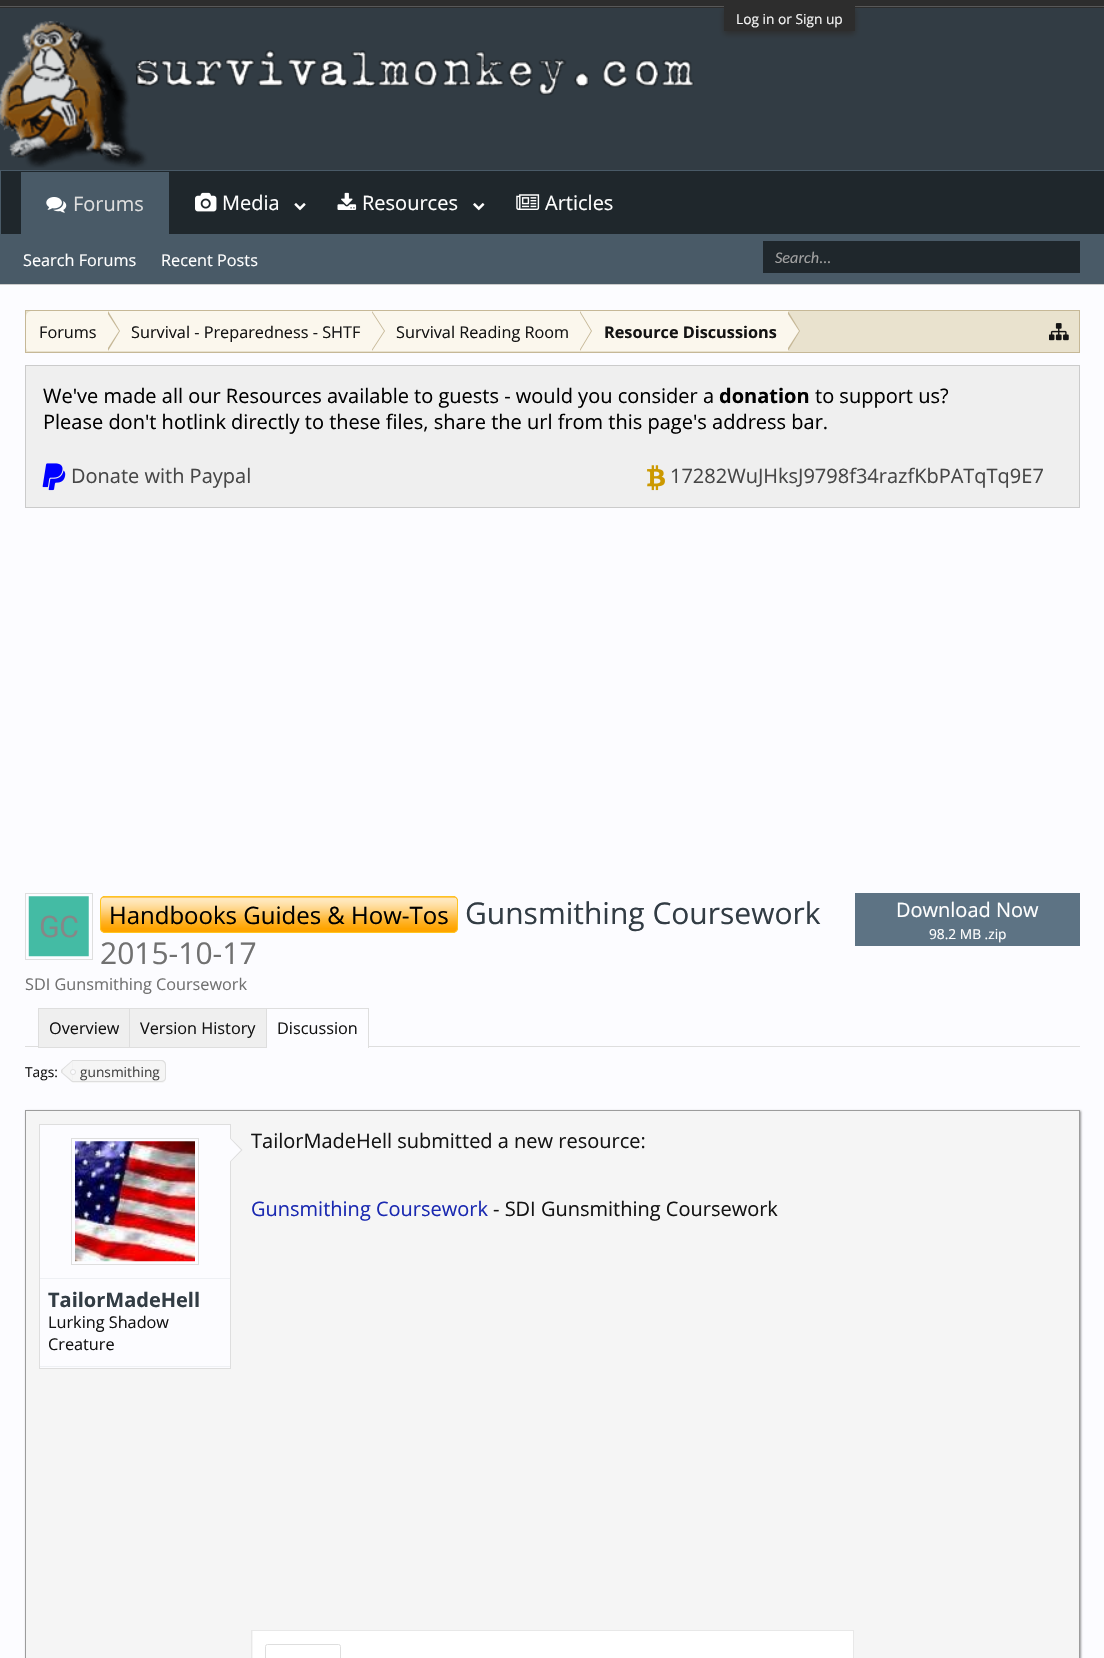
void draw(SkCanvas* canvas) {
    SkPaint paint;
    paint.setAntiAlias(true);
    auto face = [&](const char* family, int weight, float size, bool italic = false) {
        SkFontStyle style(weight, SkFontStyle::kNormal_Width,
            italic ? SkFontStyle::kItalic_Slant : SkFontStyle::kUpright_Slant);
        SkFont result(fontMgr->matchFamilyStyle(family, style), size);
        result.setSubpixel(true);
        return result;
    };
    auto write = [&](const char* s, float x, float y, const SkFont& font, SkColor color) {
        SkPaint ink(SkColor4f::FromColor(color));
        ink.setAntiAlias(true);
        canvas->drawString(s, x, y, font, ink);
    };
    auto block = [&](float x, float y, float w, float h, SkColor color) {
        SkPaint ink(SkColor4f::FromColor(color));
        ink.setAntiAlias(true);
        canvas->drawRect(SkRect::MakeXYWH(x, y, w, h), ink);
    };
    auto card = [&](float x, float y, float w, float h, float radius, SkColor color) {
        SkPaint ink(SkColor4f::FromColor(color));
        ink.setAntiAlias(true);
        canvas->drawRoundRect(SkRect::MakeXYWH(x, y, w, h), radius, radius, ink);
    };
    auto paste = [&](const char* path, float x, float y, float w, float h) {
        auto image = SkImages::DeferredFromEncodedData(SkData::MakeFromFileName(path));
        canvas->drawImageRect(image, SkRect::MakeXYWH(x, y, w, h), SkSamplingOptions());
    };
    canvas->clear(SkColorSetRGB(203, 203, 203));
    block(0, 8, 1104, 162, SkColorSetRGB(50, 60, 68));
    block(0, 0, 1104, 8, SkColorSetRGB(45, 45, 45));
    block(0, 6, 1104, 1, SkColorSetRGB(88, 88, 88));
    paint.setColor(SkColorSetRGB(45, 45, 45));
    paint.setMaskFilter(SkMaskFilter::MakeBlur(kNormal_SkBlurStyle, 3));
    canvas->drawRect(SkRect::MakeXYWH(724, 9, 131, 25), paint);
    paint.setMaskFilter(nullptr);
    block(724, 6, 131, 25, SkColorSetRGB(45, 45, 45));
    auto kFont1 = face("Open Sans", 400, 13.75f);
    write("Log in or Sign up", 736, 24, kFont1, SkColorSetRGB(245, 245, 245));
    paste("pic1.png", 0, 21, 694, 147);
    paint.setColor(SkColorSetRGB(31, 39, 44));
    canvas->drawRect(SkRect::MakeXYWH(0.5f, 170.5f, 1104, 64), paint);
    paint.setStyle(SkPaint::kStroke_Style);
    paint.setStrokeWidth(1);
    paint.setColor(SkColorSetRGB(73, 90, 103));
    canvas->drawRect(SkRect::MakeXYWH(0.5f, 170.5f, 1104, 64), paint);
    paste("pic2.png", 195, 192, 22, 20);
    auto kFont2 = face("Open Sans", 400, 20);
    write("Media", 222, 210, kFont2, SK_ColorWHITE);
    paste("pic3.png", 294, 203, 12, 8);
    paste("pic4.png", 337, 192, 20, 18);
    write("Resources", 362, 210, kFont2, SK_ColorWHITE);
    paste("pic5.png", 473, 203, 12, 8);
    paste("pic6.png", 516, 194, 24, 16);
    write("Articles", 545, 210, kFont2, SK_ColorWHITE);
    block(21, 172, 148, 62, SkColorSetRGB(73, 90, 103));
    paint.setColor(SkColorSetRGB(31, 39, 44));
    canvas->drawRect(SkRect::MakeXYWH(20.5f, 171.5f, 149, 64), paint);
    paste("pic7.png", 46, 197, 21, 16);
    write("Forums", 73, 211, kFont2, SkColorSetRGB(222, 222, 222));
    block(0, 234, 1104, 50, SkColorSetRGB(73, 90, 103));
    auto kFont3 = face("Open Sans", 400, 16.25f);
    write("Search Forums", 23, 266, kFont3, SK_ColorWHITE);
    write("Recent Posts", 161, 266, kFont3, SK_ColorWHITE);
    block(763, 241, 317, 32, SkColorSetRGB(31, 39, 44));
    auto kFont4 = face("Carlito", 400, 16.25f, true);
    write("Search...", 775, 263, kFont4, SkColorSetRGB(160, 160, 160));
    block(0, 285, 1104, 1373, SkColorSetRGB(252, 252, 255));
    paint.setStyle(SkPaint::kFill_Style);
    paint.setColor(SkColorSetRGB(233, 226, 206));
    canvas->drawRect(SkRect::MakeXYWH(25.5f, 310.5f, 1054, 42), paint);
    paint.setStyle(SkPaint::kStroke_Style);
    paint.setColor(SkColorSetRGB(198, 184, 151));
    canvas->drawRect(SkRect::MakeXYWH(25.5f, 310.5f, 1054, 42), paint);
    canvas->save();
    canvas->clipRect(SkRect::MakeXYWH(26, 311, 1053, 40));
    paint.setStyle(SkPaint::kFill_Style);
    paint.setColor(SkColorSetRGB(251, 247, 237));
    canvas->drawPath(SkPathBuilder().moveTo(32, 311).lineTo(109, 311).lineTo(109, 353).lineTo(32, 353).cubicTo(28.5f, 353, 26, 350.5f, 26, 347).lineTo(26, 317).cubicTo(26, 313.5f, 28.5f, 311, 32, 311).close().detach(), paint);
    canvas->restore();
    write("Forums", 39, 338, kFont3, SkColorSetRGB(20, 20, 20));
    block(109, 311, 680, 40, SkColorSetRGB(251, 247, 237));
    paint.setColor(SkColorSetRGB(198, 184, 151));
    canvas->drawPath(SkPathBuilder().moveTo(108, 351).lineTo(108, 311).lineTo(120, 331).close().detach(), paint);
    paint.setColor(SkColorSetRGB(251, 247, 237));
    canvas->drawPath(SkPathBuilder().moveTo(106, 351).lineTo(106, 311).lineTo(119, 331).close().detach(), paint);
    write("Survival - Preparedness - SHTF", 131, 338, kFont3, SkColorSetRGB(20, 20, 20));
    paint.setColor(SkColorSetRGB(198, 184, 151));
    canvas->drawPath(SkPathBuilder().moveTo(372, 351).lineTo(372, 311).lineTo(385, 331).close().detach(), paint);
    paint.setColor(SkColorSetRGB(251, 247, 237));
    canvas->drawPath(SkPathBuilder().moveTo(371, 351).lineTo(371, 311).lineTo(384, 331).close().detach(), paint);
    write("Survival Reading Room", 396, 338, kFont3, SkColorSetRGB(20, 20, 20));
    paint.setColor(SkColorSetRGB(198, 184, 151));
    canvas->drawPath(SkPathBuilder().moveTo(580, 351).lineTo(580, 311).lineTo(592, 331).close().detach(), paint);
    paint.setColor(SkColorSetRGB(251, 247, 237));
    canvas->drawPath(SkPathBuilder().moveTo(579, 351).lineTo(579, 311).lineTo(591, 331).close().detach(), paint);
    auto kFont5 = face("Open Sans", 700, 16.25f);
    write("Resource Discussions", 604, 338, kFont5, SkColorSetRGB(20, 20, 20));
    paint.setColor(SkColorSetRGB(198, 184, 151));
    canvas->drawPath(SkPathBuilder().moveTo(788, 351).lineTo(788, 311).lineTo(800, 331).close().detach(), paint);
    paint.setColor(SkColorSetRGB(251, 247, 237));
    canvas->drawPath(SkPathBuilder().moveTo(786, 351).lineTo(786, 311).lineTo(799, 331).close().detach(), paint);
    paste("pic8.png", 1049, 323, 20, 18);
    paint.setColor(SkColorSetRGB(239, 239, 239));
    canvas->drawRect(SkRect::MakeXYWH(25.5f, 365.5f, 1054, 142), paint);
    paint.setStyle(SkPaint::kStroke_Style);
    paint.setColor(SkColorSetRGB(203, 203, 203));
    canvas->drawRect(SkRect::MakeXYWH(25.5f, 365.5f, 1054, 142), paint);
    write("We've made all our Resources available to guests - would you consider a", 43, 403, kFont2, SK_ColorBLACK);
    auto kFont6 = face("Open Sans", 700, 20);
    write("donation", 719, 403, kFont6, SK_ColorBLACK);
    write("to support us?", 815, 403, kFont2, SK_ColorBLACK);
    write("Please don't hotlink directly to these files, share the url from this page's address bar.", 43, 429, kFont2, SK_ColorBLACK);
    paste("pic9.png", 42, 463, 24, 28);
    write("Donate with Paypal", 71, 483, kFont2, SkColorSetRGB(70, 70, 70));
    paste("pic10.png", 647, 465, 18, 26);
    write("17282WuJHksJ9798f34razfKbPATqTq9E7", 670, 483, kFont2, SkColorSetRGB(70, 70, 70));
    paint.setColor(SkColorSetRGB(222, 222, 222));
    canvas->drawRect(SkRect::MakeXYWH(25.5f, 893.5f, 67, 66), paint);
    paste("pic11.png", 28, 896, 61, 61);
    card(100, 896, 358, 37, 5, SkColorSetRGB(255, 165, 0));
    paste("pic12.png", 100, 897, 358, 31);
    paint.setColor(SkColorSetRGB(255, 197, 32));
    canvas->drawRoundRect(SkRect::MakeXYWH(100.5f, 896.5f, 357, 36), 4.5f, 4.5f, paint);
    auto kFont7 = face("Open Sans", 400, 24);
    write("Handbooks Guides & How-Tos", 109, 924, kFont7, SK_ColorBLACK);
    auto kFont8 = face("Open Sans", 400, 30);
    write("Gunsmithing Coursework", 465, 924, kFont8, SkColorSetRGB(50, 60, 68));
    write("2015-10-17", 100, 964, kFont8, SkColorSetRGB(113, 113, 113));
    block(855, 893, 225, 53, SkColorSetRGB(93, 115, 132));
    write("Download Now", 896, 917, kFont2, SK_ColorWHITE);
    write("98.2 MB .zip", 929, 939, kFont1, SK_ColorWHITE);
    write("SDI Gunsmithing Coursework", 25, 990, kFont3, SkColorSetRGB(113, 113, 113));
    block(25, 1046, 1055, 1, SkColorSetRGB(222, 222, 222));
    paint.setStyle(SkPaint::kFill_Style);
    paint.setColor(SkColorSetRGB(239, 239, 239));
    canvas->drawRect(SkRect::MakeXYWH(38.5f, 1008.5f, 91, 39), paint);
    paint.setStyle(SkPaint::kStroke_Style);
    paint.setColor(SkColorSetRGB(222, 222, 222));
    canvas->drawRect(SkRect::MakeXYWH(38.5f, 1008.5f, 91, 39), paint);
    write("Overview", 49, 1034, kFont3, SkColorSetRGB(20, 20, 20));
    block(130, 1009, 136, 38, SkColorSetRGB(239, 239, 239));
    canvas->drawRect(SkRect::MakeXYWH(129.5f, 1008.5f, 138, 39), paint);
    write("Version History", 140, 1034, kFont3, SkColorSetRGB(20, 20, 20));
    block(267, 1009, 101, 39, SkColorSetRGB(252, 252, 255));
    block(266, 1008, 103, 1, SkColorSetRGB(222, 222, 222));
    block(368, 1008, 1, 40, SkColorSetRGB(222, 222, 222));
    block(266, 1008, 1, 40, SkColorSetRGB(222, 222, 222));
    write("Discussion", 277, 1034, kFont3, SkColorSetRGB(20, 20, 20));
    write("Tags:", 25, 1077, kFont1, SkColorSetRGB(20, 20, 20));
    paint.setStyle(SkPaint::kFill_Style);
    paint.setColor(SkColorSetRGB(245, 245, 245));
    canvas->drawPath(SkPathBuilder().moveTo(73, 1060).lineTo(161, 1060).cubicTo(164, 1060, 166, 1062, 166, 1065).lineTo(166, 1078).cubicTo(166, 1081, 164, 1083, 161, 1083).lineTo(73, 1083).close().detach(), paint);
    paint.setColor(SkColorSetRGB(222, 222, 222));
    canvas->drawPath(SkPathBuilder(SkPathFillType::kEvenOdd).moveTo(72, 1060).lineTo(161, 1060).cubicTo(164, 1060, 166, 1062, 166, 1065).lineTo(166, 1078).cubicTo(166, 1080, 164, 1082, 161, 1082).lineTo(72, 1082).close().moveTo(72, 1061).lineTo(161, 1061).cubicTo(163, 1061, 165, 1063, 165, 1065).lineTo(165, 1078).cubicTo(165, 1080, 163, 1081, 161, 1081).lineTo(72, 1081).close().detach(), paint);
    canvas->drawPath(SkPathBuilder().moveTo(72.5f, 1060).lineTo(72.5f, 1082.5f).lineTo(61, 1072.5f).lineTo(61, 1070).close().detach(), paint);
    paint.setColor(SkColorSetRGB(245, 245, 245));
    canvas->drawPath(SkPathBuilder().moveTo(72.5f, 1061).lineTo(72.5f, 1081).lineTo(62.5f, 1072.5f).lineTo(62.5f, 1070).close().detach(), paint);
    write("gunsmithing", 80, 1077, kFont1, SkColorSetRGB(70, 70, 70));
    paint.setColor(SkColorSetRGB(252, 252, 255));
    canvas->drawCircle(73, 1072, 2.5f, paint);
    paint.setStyle(SkPaint::kStroke_Style);
    paint.setColor(SkColorSetRGB(222, 222, 222));
    canvas->drawCircle(73, 1072, 2.5f, paint);
    paint.setStyle(SkPaint::kFill_Style);
    paint.setColor(SkColorSetARGB(102, 0, 0, 0));
    paint.setMaskFilter(SkMaskFilter::MakeBlur(kNormal_SkBlurStyle, 1));
    canvas->drawRect(SkRect::MakeXYWH(26, 1111, 1055, 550), paint);
    paint.setMaskFilter(nullptr);
    paint.setColor(SkColorSetRGB(245, 245, 245));
    canvas->drawRect(SkRect::MakeXYWH(25.5f, 1110.5f, 1054, 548), paint);
    paint.setStyle(SkPaint::kStroke_Style);
    paint.setColor(SkColorSetRGB(156, 156, 156));
    canvas->drawRect(SkRect::MakeXYWH(25.5f, 1110.5f, 1054, 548), paint);
    write("TailorMadeHell submitted a new resource:", 251, 1148, kFont2, SkColorSetRGB(20, 20, 20));
    write("Gunsmithing Coursework", 251, 1216, kFont2, SkColorSetRGB(26, 41, 177));
    write("- SDI Gunsmithing Coursework", 493, 1216, kFont2, SkColorSetRGB(20, 20, 20));
    paint.setColor(SkColorSetRGB(232, 232, 232));
    canvas->drawRect(SkRect::MakeXYWH(251.5f, 1630.5f, 602, 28), paint);
    block(253, 1631, 600, 27, SK_ColorWHITE);
    paint.setColor(SkColorSetRGB(222, 222, 222));
    canvas->drawRoundRect(SkRect::MakeXYWH(265.5f, 1644.5f, 75, 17), 2, 2, paint);
    paint.setStyle(SkPaint::kFill_Style);
    paint.setColor(SkColorSetRGB(252, 252, 255));
    canvas->drawRect(SkRect::MakeXYWH(39.5f, 1124.5f, 191, 244), paint);
    paint.setStyle(SkPaint::kStroke_Style);
    paint.setColor(SkColorSetRGB(222, 222, 222));
    canvas->drawRect(SkRect::MakeXYWH(39.5f, 1124.5f, 191, 244), paint);
    canvas->drawRect(SkRect::MakeXYWH(71.5f, 1138.5f, 127, 126), paint);
    paste("pic13.png", 75, 1141, 120, 121);
    paint.setStyle(SkPaint::kFill_Style);
    canvas->drawPath(SkPathBuilder().moveTo(230, 1162.5f).lineTo(230, 1137.5f).lineTo(242.5f, 1150).close().detach(), paint);
    paint.setColor(SkColorSetRGB(252, 252, 255));
    canvas->drawPath(SkPathBuilder().moveTo(229, 1162.5f).lineTo(229, 1137.5f).lineTo(241, 1150).close().detach(), paint);
    block(40, 1278, 190, 1, SkColorSetRGB(238, 240, 244));
    block(40, 1366, 190, 1, SkColorSetRGB(238, 240, 244));
    write("TailorMadeHell", 48, 1307, kFont6, SkColorSetRGB(50, 60, 68));
    write("Lurking Shadow", 48, 1328, kFont3, SkColorSetRGB(20, 20, 20));
    write("Creature", 48, 1350, kFont3, SkColorSetRGB(20, 20, 20));
}
